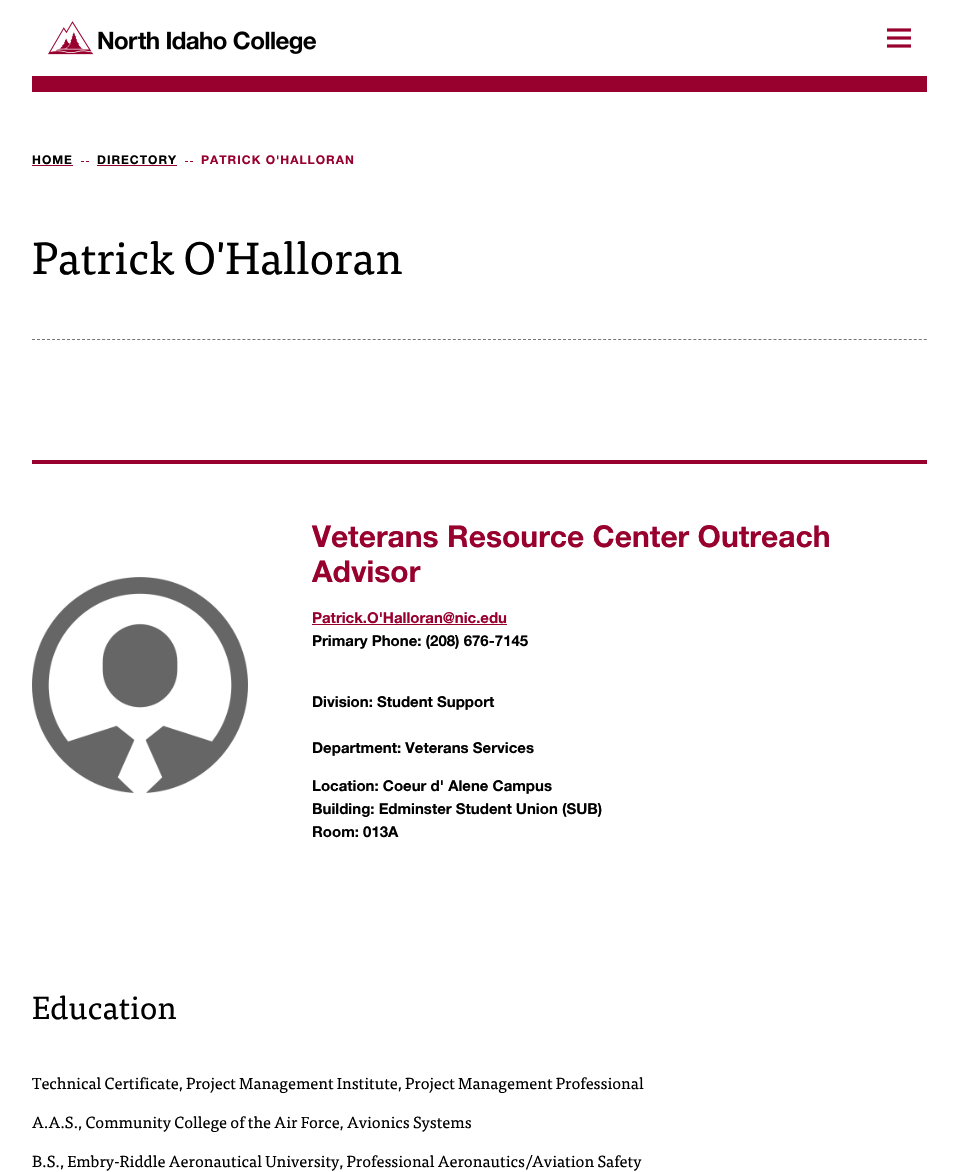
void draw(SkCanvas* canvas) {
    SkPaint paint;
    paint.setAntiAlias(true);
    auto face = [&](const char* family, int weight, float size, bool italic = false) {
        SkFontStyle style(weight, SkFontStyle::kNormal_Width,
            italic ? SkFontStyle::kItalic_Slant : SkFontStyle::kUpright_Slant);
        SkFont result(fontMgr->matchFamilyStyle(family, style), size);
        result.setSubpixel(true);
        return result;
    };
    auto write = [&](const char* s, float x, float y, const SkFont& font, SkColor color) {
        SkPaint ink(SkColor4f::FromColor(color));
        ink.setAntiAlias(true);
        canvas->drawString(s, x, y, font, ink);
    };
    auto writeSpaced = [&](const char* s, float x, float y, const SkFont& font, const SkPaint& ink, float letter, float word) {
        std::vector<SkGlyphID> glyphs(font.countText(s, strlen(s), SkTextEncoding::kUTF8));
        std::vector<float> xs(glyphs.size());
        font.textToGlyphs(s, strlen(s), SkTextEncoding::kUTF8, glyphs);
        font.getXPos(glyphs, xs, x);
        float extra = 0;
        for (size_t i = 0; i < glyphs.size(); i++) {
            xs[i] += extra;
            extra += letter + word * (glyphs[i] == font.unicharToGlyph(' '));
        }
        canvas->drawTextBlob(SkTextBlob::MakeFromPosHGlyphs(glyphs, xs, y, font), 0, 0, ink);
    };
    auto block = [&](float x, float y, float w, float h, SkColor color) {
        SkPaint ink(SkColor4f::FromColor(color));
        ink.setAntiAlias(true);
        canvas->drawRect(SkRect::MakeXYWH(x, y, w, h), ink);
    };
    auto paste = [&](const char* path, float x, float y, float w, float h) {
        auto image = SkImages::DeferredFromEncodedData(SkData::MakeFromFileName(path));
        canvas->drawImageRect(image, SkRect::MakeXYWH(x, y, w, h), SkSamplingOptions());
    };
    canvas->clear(SK_ColorWHITE);
    block(32, 76, 895, 16, SkColorSetRGB(152, 0, 46));
    paste("pic1.png", 48, 21, 268, 34);
    paste("pic2.png", 887, 28, 24, 20);
    auto kFont1 = face("Helvetica Neue", 700, 12);
    paint.setColor(SK_ColorBLACK);
    writeSpaced("HOME", 32, 164, kFont1, paint, 1, 0);
    block(32, 165, 41, 1, SkColorSetRGB(152, 0, 46));
    paint.setStyle(SkPaint::kStroke_Style);
    paint.setStrokeWidth(1);
    paint.setColor(SkColorSetRGB(152, 0, 46));
    canvas->drawPath(SkPathBuilder().moveTo(81, 161.5f).lineTo(84, 161.5f).moveTo(86, 161.5f).lineTo(89, 161.5f).detach(), paint);
    paint.setStyle(SkPaint::kFill_Style);
    paint.setColor(SK_ColorBLACK);
    writeSpaced("DIRECTORY", 97, 164, kFont1, paint, 1, 0);
    block(97, 165, 80, 1, SkColorSetRGB(152, 0, 46));
    paint.setStyle(SkPaint::kStroke_Style);
    paint.setColor(SkColorSetRGB(152, 0, 46));
    canvas->drawPath(SkPathBuilder().moveTo(185, 161.5f).lineTo(188, 161.5f).moveTo(190, 161.5f).lineTo(193, 161.5f).detach(), paint);
    paint.setStyle(SkPaint::kFill_Style);
    writeSpaced("PATRICK O'HALLORAN", 201, 164, kFont1, paint, 1, 0);
    auto kFont2 = face("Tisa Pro", 400, 45);
    write("Patrick O'Halloran", 32, 274, kFont2, SK_ColorBLACK);
    paint.setStyle(SkPaint::kStroke_Style);
    paint.setColor(SkColorSetRGB(117, 117, 117));
    paint.setPathEffect(SkDashPathEffect::Make({{3, 2.01f}}, 0));
    canvas->drawPath(SkPathBuilder().moveTo(32, 339.5f).lineTo(927, 339.5f).detach(), paint);
    paint.setPathEffect(nullptr);
    block(32, 460, 895, 4, SkColorSetRGB(152, 0, 46));
    paste("pic3.png", 32, 577, 216, 216);
    auto kFont3 = face("Helvetica Neue", 700, 30);
    write("Veterans Resource Center Outreach", 312, 547, kFont3, SkColorSetRGB(152, 0, 46));
    write("Advisor", 312, 582, kFont3, SkColorSetRGB(152, 0, 46));
    auto kFont4 = face("Helvetica Neue", 700, 15);
    write("Patrick.O'Halloran@nic.edu", 312, 623, kFont4, SkColorSetRGB(152, 0, 46));
    block(312, 624, 195, 1, SkColorSetRGB(152, 0, 46));
    write("Primary Phone: (208) 676-7145", 312, 646, kFont4, SK_ColorBLACK);
    write("Division: Student Support", 312, 707, kFont4, SK_ColorBLACK);
    write("Department: Veterans Services", 312, 753, kFont4, SK_ColorBLACK);
    write("Location: Coeur d' Alene Campus", 312, 791, kFont4, SK_ColorBLACK);
    write("Building: Edminster Student Union (SUB)", 312, 814, kFont4, SK_ColorBLACK);
    write("Room: 013A", 312, 837, kFont4, SK_ColorBLACK);
    auto kFont5 = face("Tisa Pro", 400, 32);
    write("Education", 32, 1019, kFont5, SK_ColorBLACK);
    auto kFont6 = face("Tisa Pro", 400, 16);
    write("Technical Certificate, Project Management Institute, Project Management Professional", 32, 1089, kFont6, SK_ColorBLACK);
    write("A.A.S., Community College of the Air Force, Avionics Systems", 32, 1128, kFont6, SK_ColorBLACK);
    write("B.S., Embry-Riddle Aeronautical University, Professional Aeronautics/Aviation Safety", 32, 1167, kFont6, SK_ColorBLACK);
}
